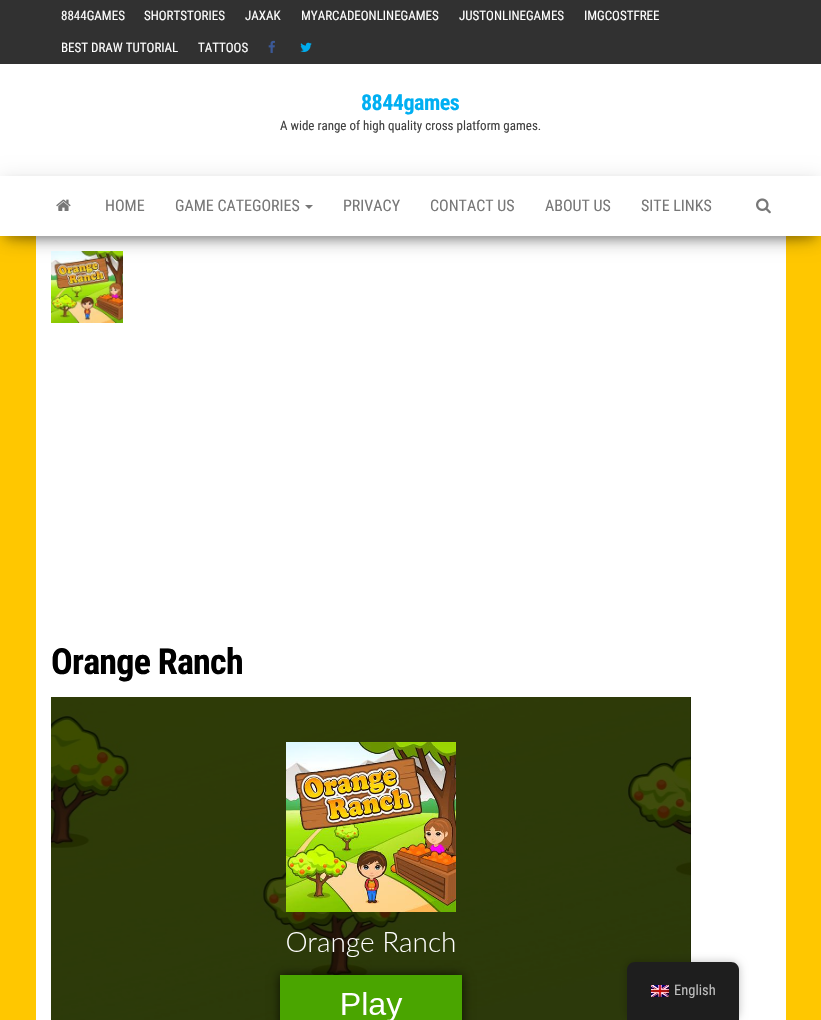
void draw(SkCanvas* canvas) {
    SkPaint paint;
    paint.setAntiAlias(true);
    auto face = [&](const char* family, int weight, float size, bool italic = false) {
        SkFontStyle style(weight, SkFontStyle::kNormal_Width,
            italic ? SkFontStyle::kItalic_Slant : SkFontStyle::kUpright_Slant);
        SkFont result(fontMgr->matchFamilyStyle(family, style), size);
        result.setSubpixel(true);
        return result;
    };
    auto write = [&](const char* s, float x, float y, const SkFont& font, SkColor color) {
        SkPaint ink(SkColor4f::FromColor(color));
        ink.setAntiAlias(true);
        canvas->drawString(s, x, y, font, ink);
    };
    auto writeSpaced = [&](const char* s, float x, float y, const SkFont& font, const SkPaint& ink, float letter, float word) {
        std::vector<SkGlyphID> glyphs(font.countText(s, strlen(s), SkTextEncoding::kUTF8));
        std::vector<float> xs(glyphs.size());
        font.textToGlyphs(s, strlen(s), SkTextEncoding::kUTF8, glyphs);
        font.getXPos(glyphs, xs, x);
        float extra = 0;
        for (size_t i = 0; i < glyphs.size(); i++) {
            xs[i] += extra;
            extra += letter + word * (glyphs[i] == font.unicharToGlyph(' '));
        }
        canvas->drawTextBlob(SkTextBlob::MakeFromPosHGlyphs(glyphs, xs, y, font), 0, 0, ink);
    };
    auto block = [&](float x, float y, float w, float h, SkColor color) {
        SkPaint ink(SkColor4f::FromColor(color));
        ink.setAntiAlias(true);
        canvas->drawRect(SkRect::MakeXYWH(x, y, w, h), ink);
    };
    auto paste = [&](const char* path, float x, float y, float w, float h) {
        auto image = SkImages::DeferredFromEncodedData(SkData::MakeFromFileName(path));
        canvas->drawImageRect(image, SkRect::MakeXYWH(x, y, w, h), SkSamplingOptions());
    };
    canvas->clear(SkColorSetRGB(255, 199, 0));
    block(0, 0, 821, 64, SkColorSetRGB(49, 49, 49));
    auto kFont1 = face("Roboto Condensed", 400, 13);
    write("8844GAMES", 61, 20, kFont1, SK_ColorWHITE);
    write("SHORTSTORIES", 144, 20, kFont1, SK_ColorWHITE);
    write("JAXAK", 245, 20, kFont1, SK_ColorWHITE);
    write("MYARCADEONLINEGAMES", 301, 20, kFont1, SK_ColorWHITE);
    write("JUSTONLINEGAMES", 459, 20, kFont1, SK_ColorWHITE);
    write("IMGCOSTFREE", 584, 20, kFont1, SK_ColorWHITE);
    write("BEST DRAW TUTORIAL", 61, 52, kFont1, SK_ColorWHITE);
    write("TATTOOS", 198, 52, kFont1, SK_ColorWHITE);
    paste("pic1.png", 268, 40, 7, 13);
    paste("pic2.png", 300, 42, 12, 10);
    block(0, 64, 821, 112, SK_ColorWHITE);
    auto kFont2 = face("Roboto Condensed", 700, 22);
    paint.setColor(SkColorSetRGB(0, 175, 242));
    writeSpaced("8844games", 361, 110, kFont2, paint, -0.5f, 0);
    write("A wide range of high quality cross platform games.", 280, 130, kFont1, SkColorSetRGB(64, 64, 64));
    block(36, 236, 750, 784, SK_ColorWHITE);
    paint.setColor(SkColorSetARGB(51, 0, 0, 0));
    paint.setMaskFilter(SkMaskFilter::MakeBlur(kNormal_SkBlurStyle, 5));
    canvas->drawRect(SkRect::MakeXYWH(5, 189, 811, 50), paint);
    paint.setMaskFilter(nullptr);
    paint.setColor(SkColorSetARGB(31, 0, 0, 0));
    paint.setMaskFilter(SkMaskFilter::MakeBlur(kNormal_SkBlurStyle, 10));
    canvas->drawRect(SkRect::MakeXYWH(0, 179, 821, 60), paint);
    paint.setMaskFilter(nullptr);
    paint.setColor(SkColorSetARGB(107, 0, 0, 0));
    paint.setMaskFilter(SkMaskFilter::MakeBlur(kNormal_SkBlurStyle, 10));
    canvas->drawRect(SkRect::MakeXYWH(12, 198, 797, 36), paint);
    paint.setMaskFilter(nullptr);
    block(0, 176, 821, 60, SK_ColorWHITE);
    paste("pic3.png", 56, 199, 15, 12);
    auto kFont3 = face("Roboto Condensed", 400, 16);
    write("HOME", 105, 211, kFont3, SkColorSetRGB(119, 119, 119));
    write("GAME CATEGORIES", 175, 211, kFont3, SkColorSetRGB(119, 119, 119));
    paint.setColor(SkColorSetRGB(119, 119, 119));
    canvas->drawPath(SkPathBuilder().moveTo(305, 205).lineTo(313, 205).lineTo(309, 209).close().detach(), paint);
    write("PRIVACY", 343, 211, kFont3, SkColorSetRGB(119, 119, 119));
    write("CONTACT US", 430, 211, kFont3, SkColorSetRGB(119, 119, 119));
    write("ABOUT US", 545, 211, kFont3, SkColorSetRGB(119, 119, 119));
    write("SITE LINKS", 641, 211, kFont3, SkColorSetRGB(119, 119, 119));
    paste("pic4.png", 756, 198, 15, 16);
    paste("pic5.png", 51, 251, 72, 72);
    auto kFont4 = face("Roboto Condensed", 700, 36);
    paint.setColor(SK_ColorBLACK);
    writeSpaced("Orange Ranch", 51, 674, kFont4, paint, -0.75f, 0);
    paste("pic6.png", 51, 697, 640, 323);
    paint.setColor(SkColorSetARGB(64, 0, 0, 0));
    paint.setMaskFilter(SkMaskFilter::MakeBlur(kNormal_SkBlurStyle, 4));
    canvas->drawRoundRect(SkRect::MakeXYWH(627, 962, 112, 58), 8, 8, paint);
    paint.setMaskFilter(nullptr);
    paint.setColor(SkColorSetRGB(30, 30, 30));
    canvas->drawPath(SkPathBuilder().moveTo(635, 962).lineTo(731, 962).cubicTo(735.5f, 962, 739, 965.5f, 739, 970).lineTo(739, 1020).lineTo(627, 1020).lineTo(627, 970).cubicTo(627, 965.5f, 630.5f, 962, 635, 962).close().detach(), paint);
    paste("pic7.png", 651, 985, 18, 12);
    auto kFont5 = face("Roboto Condensed", 400, 14.5f);
    write("English", 674, 995, kFont5, SkColorSetRGB(189, 189, 189));
}
